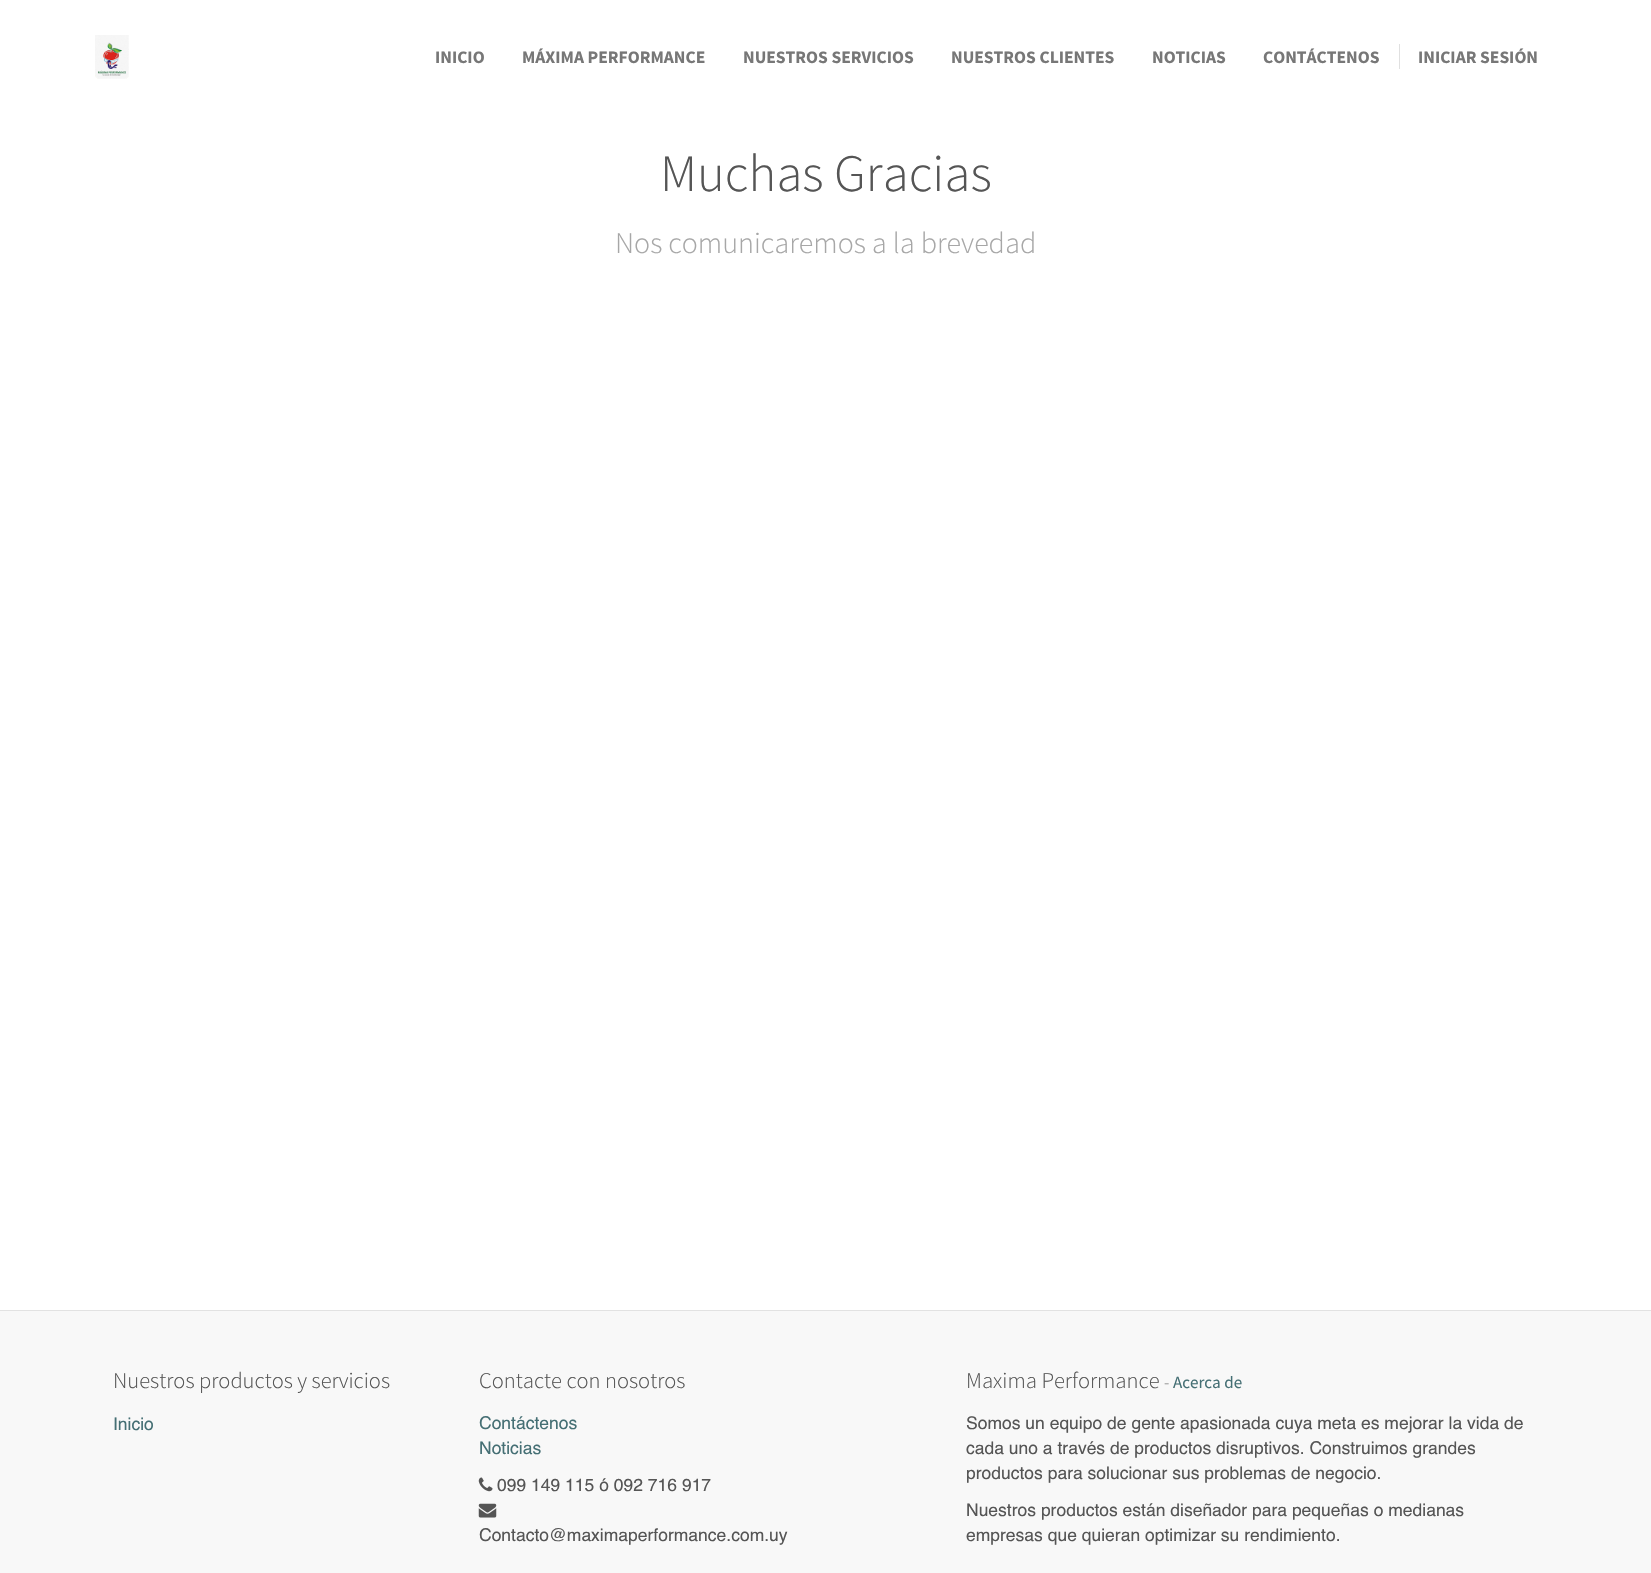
void draw(SkCanvas* canvas) {
    SkPaint paint;
    paint.setAntiAlias(true);
    auto face = [&](const char* family, int weight, float size, bool italic = false) {
        SkFontStyle style(weight, SkFontStyle::kNormal_Width,
            italic ? SkFontStyle::kItalic_Slant : SkFontStyle::kUpright_Slant);
        SkFont result(fontMgr->matchFamilyStyle(family, style), size);
        result.setSubpixel(true);
        return result;
    };
    auto write = [&](const char* s, float x, float y, const SkFont& font, SkColor color) {
        SkPaint ink(SkColor4f::FromColor(color));
        ink.setAntiAlias(true);
        canvas->drawString(s, x, y, font, ink);
    };
    auto block = [&](float x, float y, float w, float h, SkColor color) {
        SkPaint ink(SkColor4f::FromColor(color));
        ink.setAntiAlias(true);
        canvas->drawRect(SkRect::MakeXYWH(x, y, w, h), ink);
    };
    auto paste = [&](const char* path, float x, float y, float w, float h) {
        auto image = SkImages::DeferredFromEncodedData(SkData::MakeFromFileName(path));
        canvas->drawImageRect(image, SkRect::MakeXYWH(x, y, w, h), SkSamplingOptions());
    };
    canvas->clear(SK_ColorWHITE);
    paste("pic1.png", 95, 35, 34, 44);
    auto kFont1 = face("Source Sans Pro", 700, 17.5f);
    write("INICIO", 435, 63, kFont1, SkColorSetRGB(119, 119, 119));
    write("MÁXIMA PERFORMANCE", 522, 63, kFont1, SkColorSetRGB(119, 119, 119));
    write("NUESTROS SERVICIOS", 743, 63, kFont1, SkColorSetRGB(119, 119, 119));
    write("NUESTROS CLIENTES", 951, 63, kFont1, SkColorSetRGB(119, 119, 119));
    write("NOTICIAS", 1152, 63, kFont1, SkColorSetRGB(119, 119, 119));
    write("CONTÁCTENOS", 1263, 63, kFont1, SkColorSetRGB(119, 119, 119));
    block(1399, 44, 1, 25, SkColorSetRGB(224, 224, 224));
    write("INICIAR SESIÓN", 1418, 63, kFont1, SkColorSetRGB(119, 119, 119));
    auto kFont2 = face("Source Sans Pro", 300, 52.5f);
    write("Muchas Gracias", 660, 191, kFont2, SkColorSetRGB(85, 85, 85));
    auto kFont3 = face("Source Sans Pro", 300, 30);
    write("Nos comunicaremos a la brevedad", 615, 253, kFont3, SkColorSetRGB(167, 167, 167));
    block(0, 1311, 1651, 262, SkColorSetRGB(248, 248, 248));
    block(0, 1310, 1651, 1, SkColorSetRGB(226, 226, 226));
    auto kFont4 = face("Source Sans Pro", 300, 22.5f);
    write("Nuestros productos y servicios", 113, 1388, kFont4, SkColorSetRGB(85, 85, 85));
    auto kFont5 = face("Helvetica", 400, 17.5f);
    write("Inicio", 113, 1430, kFont5, SkColorSetRGB(69, 111, 116));
    write("Contacte con nosotros", 479, 1388, kFont4, SkColorSetRGB(85, 85, 85));
    write("Contáctenos", 479, 1429, kFont5, SkColorSetRGB(69, 111, 116));
    write("Noticias", 479, 1454, kFont5, SkColorSetRGB(69, 111, 116));
    paste("pic2.png", 478, 1477, 15, 15);
    write("099 149 115 ó 092 716 917", 497, 1491, kFont5, SkColorSetRGB(85, 85, 85));
    paste("pic3.png", 478, 1503, 19, 15);
    write("Contacto@maximaperformance.com.uy", 479, 1541, kFont5, SkColorSetRGB(85, 85, 85));
    write("Maxima Performance", 966, 1388, kFont4, SkColorSetRGB(85, 85, 85));
    auto kFont6 = face("Source Sans Pro", 400, 17);
    write("-", 1164, 1388, kFont6, SkColorSetRGB(167, 167, 167));
    write("Acerca de", 1173, 1388, kFont6, SkColorSetRGB(69, 111, 116));
    write("Somos un equipo de gente apasionada cuya meta es mejorar la vida de", 966, 1429, kFont5, SkColorSetRGB(85, 85, 85));
    write("cada uno a través de productos disruptivos. Construimos grandes", 966, 1454, kFont5, SkColorSetRGB(85, 85, 85));
    write("productos para solucionar sus problemas de negocio.", 966, 1479, kFont5, SkColorSetRGB(85, 85, 85));
    write("Nuestros productos están diseñador para pequeñas o medianas", 966, 1516, kFont5, SkColorSetRGB(85, 85, 85));
    write("empresas que quieran optimizar su rendimiento.", 966, 1541, kFont5, SkColorSetRGB(85, 85, 85));
}
